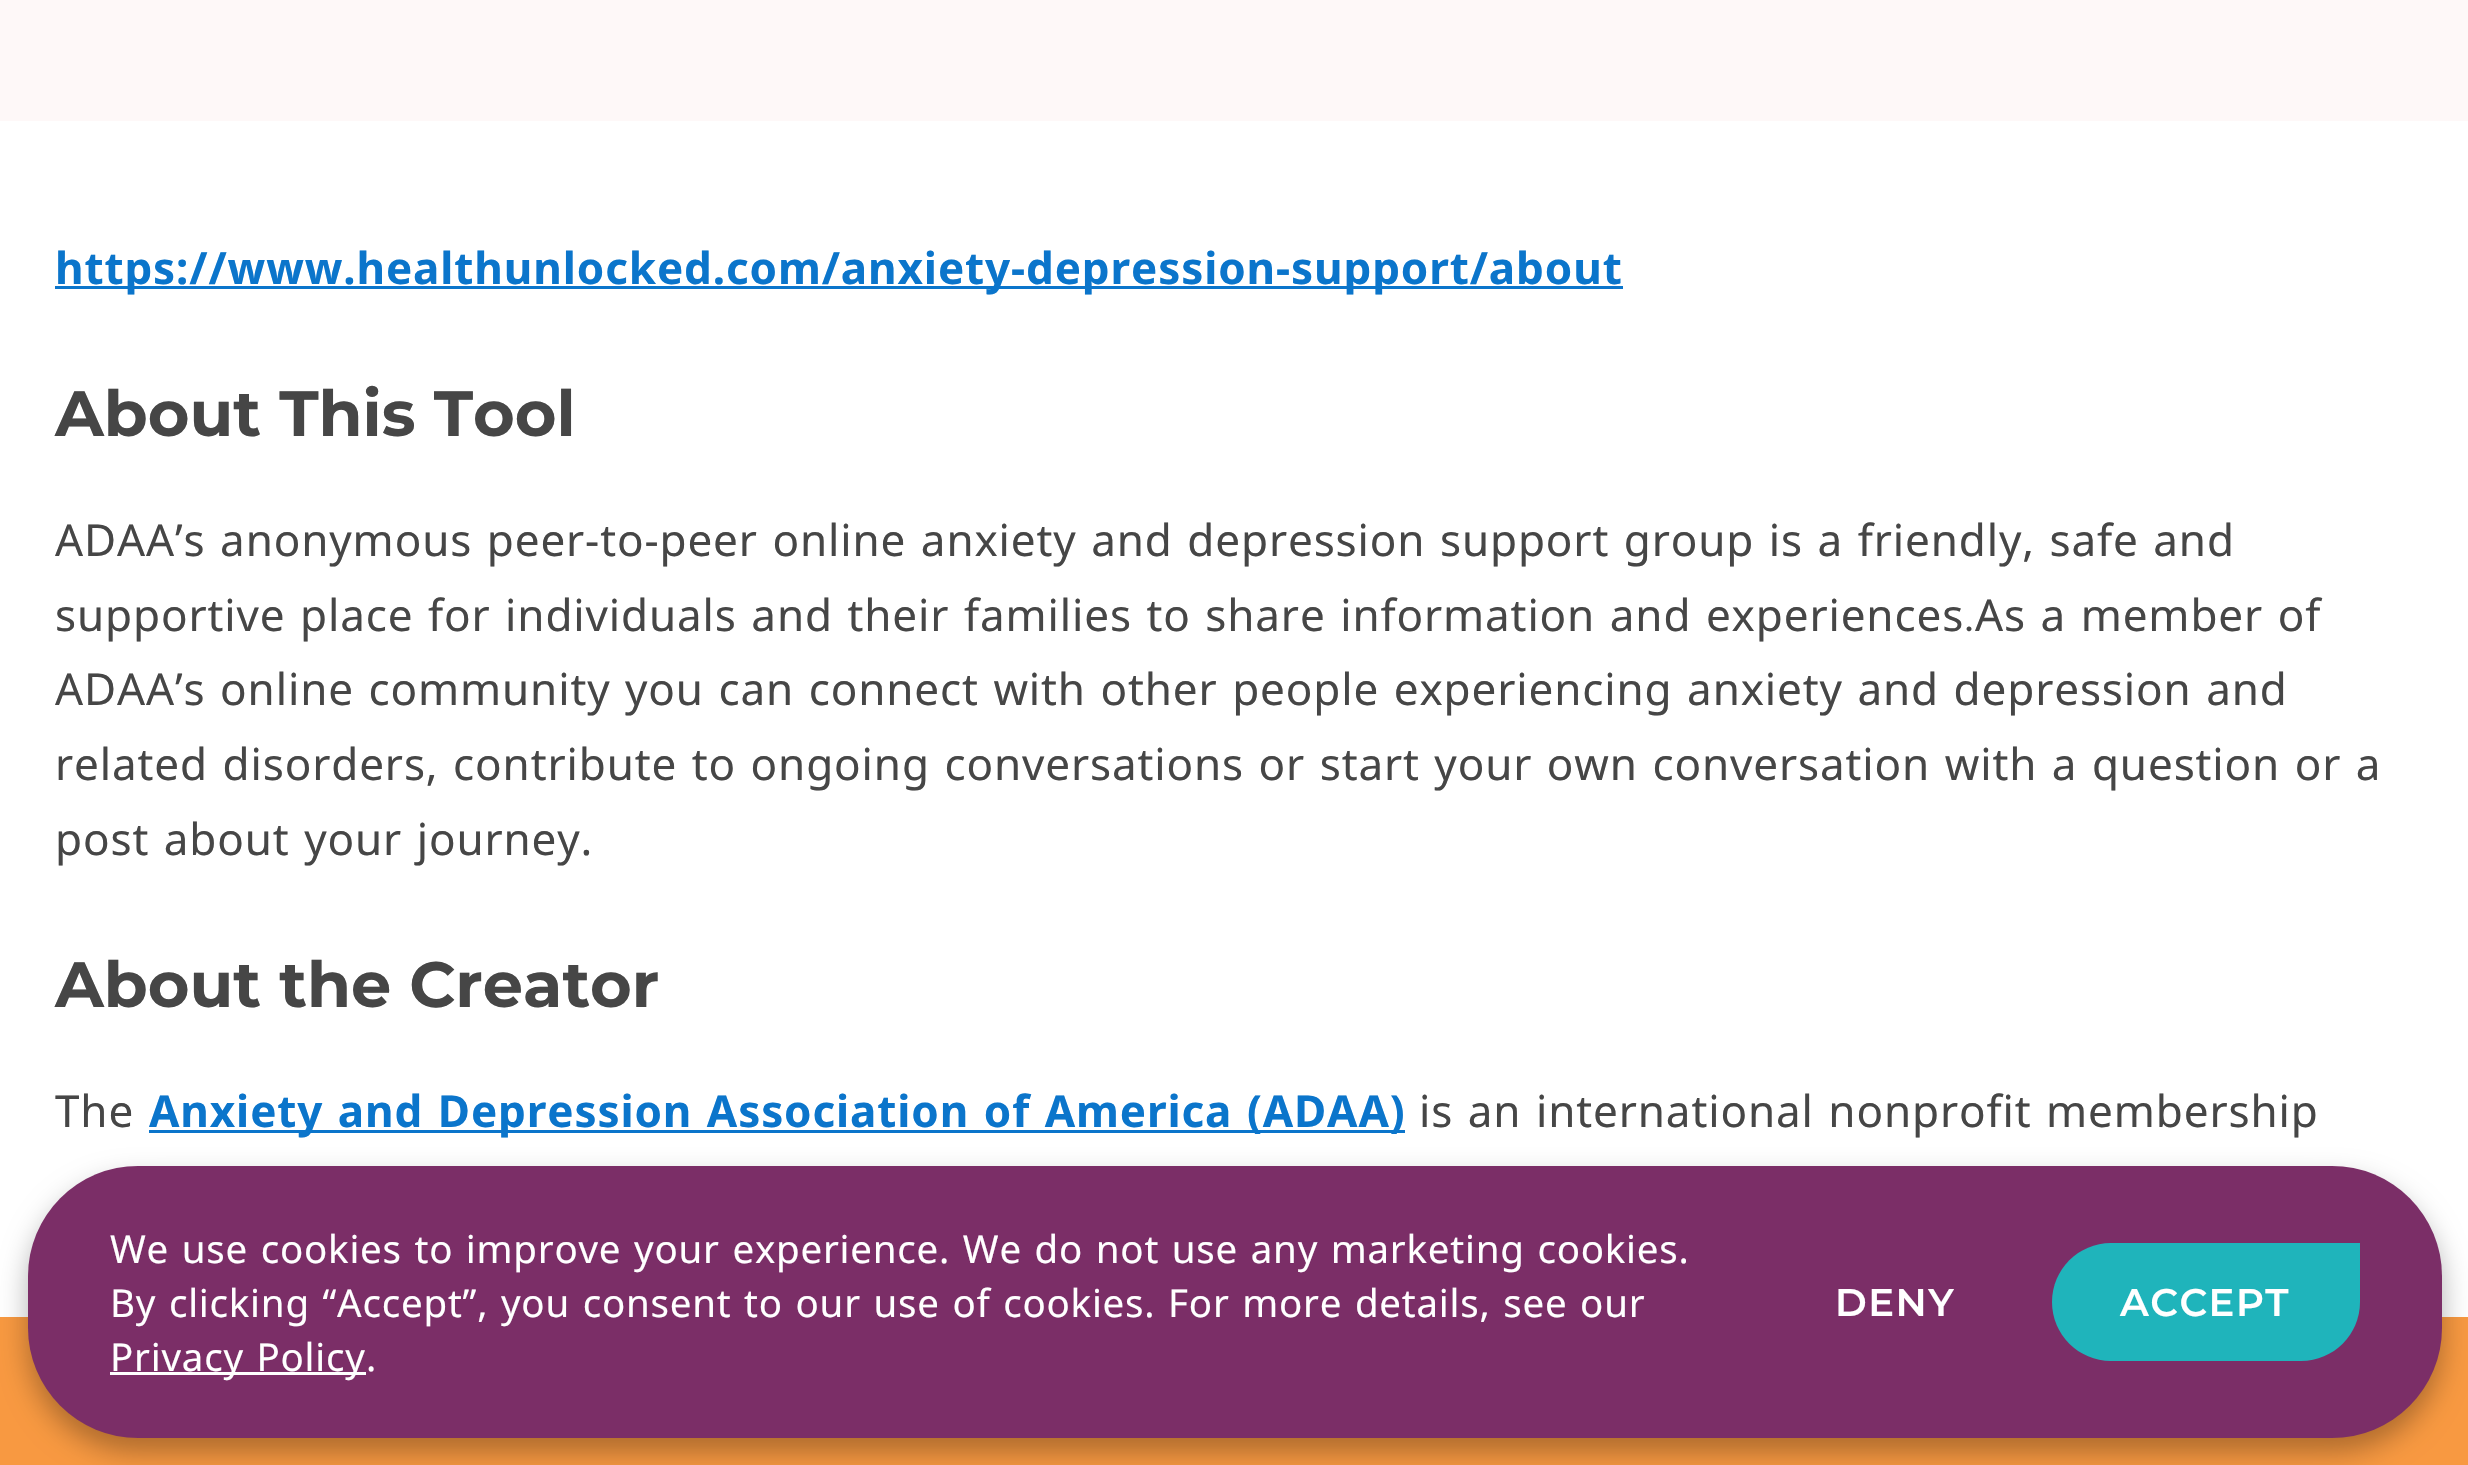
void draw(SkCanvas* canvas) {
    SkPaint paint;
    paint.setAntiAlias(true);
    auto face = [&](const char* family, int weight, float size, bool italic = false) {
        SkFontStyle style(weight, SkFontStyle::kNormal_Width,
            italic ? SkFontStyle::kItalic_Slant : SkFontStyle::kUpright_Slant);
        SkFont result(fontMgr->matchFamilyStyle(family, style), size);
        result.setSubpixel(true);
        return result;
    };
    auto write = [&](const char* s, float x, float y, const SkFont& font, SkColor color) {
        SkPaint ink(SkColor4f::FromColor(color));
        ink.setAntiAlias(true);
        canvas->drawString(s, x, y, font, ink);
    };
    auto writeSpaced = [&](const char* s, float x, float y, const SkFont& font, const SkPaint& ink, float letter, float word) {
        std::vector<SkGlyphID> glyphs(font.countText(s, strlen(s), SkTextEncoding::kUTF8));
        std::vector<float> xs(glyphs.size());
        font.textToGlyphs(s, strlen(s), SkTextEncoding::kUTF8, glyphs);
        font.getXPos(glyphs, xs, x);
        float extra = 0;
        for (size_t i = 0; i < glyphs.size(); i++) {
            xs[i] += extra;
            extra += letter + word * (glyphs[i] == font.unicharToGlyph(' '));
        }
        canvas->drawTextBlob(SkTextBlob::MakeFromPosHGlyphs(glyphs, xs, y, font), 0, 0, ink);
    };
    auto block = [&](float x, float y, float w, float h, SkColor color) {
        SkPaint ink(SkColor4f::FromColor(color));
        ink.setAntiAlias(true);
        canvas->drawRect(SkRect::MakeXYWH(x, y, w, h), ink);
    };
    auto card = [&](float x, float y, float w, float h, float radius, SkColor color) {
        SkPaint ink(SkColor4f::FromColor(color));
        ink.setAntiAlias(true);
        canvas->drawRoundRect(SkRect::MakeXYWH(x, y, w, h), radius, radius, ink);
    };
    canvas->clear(SK_ColorWHITE);
    block(0, 0, 2468, 121, SkColorSetRGB(254, 248, 248));
    block(55, 286, 1568, 3, SkColorSetRGB(11, 117, 203));
    auto kFont1 = face("Noto Sans", 700, 44);
    paint.setColor(SkColorSetRGB(11, 117, 203));
    writeSpaced("https://www.healthunlocked.com/anxiety-depression-support/about", 55, 284, kFont1, paint, 0.88f, 0);
    auto kFont2 = face("Montserrat", 700, 63.75f);
    write("About This Tool", 55, 436, kFont2, SkColorSetRGB(70, 70, 70));
    auto kFont3 = face("Noto Sans", 400, 44);
    paint.setColor(SkColorSetRGB(70, 70, 70));
    writeSpaced("ADAA’s anonymous peer-to-peer online anxiety and depression support group is a friendly, safe and", 55, 556, kFont3, paint, 0.88f, 2.25f);
    writeSpaced("supportive place for individuals and their families to share information and experiences", 55, 631, kFont3, paint, 0.88f, 2.25f);
    auto kFont4 = face("Carlito", 400, 40);
    writeSpaced(".", 1964, 631, kFont4, paint, 0.88f, 0);
    writeSpaced("As a member of", 1975, 631, kFont3, paint, 0.88f, 2.25f);
    writeSpaced("ADAA’s online community you can connect with other people experiencing anxiety and depression and", 55, 705, kFont3, paint, 0.88f, 2.25f);
    writeSpaced("related disorders, contribute to ongoing conversations or start your own conversation with a question or a", 55, 780, kFont3, paint, 0.88f, 2.25f);
    writeSpaced("post about your journey.", 55, 855, kFont3, paint, 0.88f, 2.25f);
    write("About the Creator", 55, 1007, kFont2, SkColorSetRGB(70, 70, 70));
    writeSpaced("The", 55, 1127, kFont3, paint, 0.88f, 0);
    block(149, 1130, 1256, 3, SkColorSetRGB(11, 117, 203));
    paint.setColor(SkColorSetRGB(11, 117, 203));
    writeSpaced("Anxiety and Depression Association of America (ADAA)", 149, 1127, kFont1, paint, 0.88f, 2.25f);
    paint.setColor(SkColorSetRGB(70, 70, 70));
    writeSpaced("is an international nonprofit membership", 1419, 1127, kFont3, paint, 0.88f, 2.25f);
    block(0, 1317, 2468, 148, SkColorSetRGB(248, 153, 65));
    paint.setColor(SkColorSetARGB(77, 0, 0, 0));
    paint.setMaskFilter(SkMaskFilter::MakeBlur(kNormal_SkBlurStyle, 14));
    canvas->drawRoundRect(SkRect::MakeXYWH(28, 1180, 2414, 272), 110, 110, paint);
    paint.setMaskFilter(nullptr);
    card(28, 1166, 2414, 272, 110, SkColorSetRGB(123, 46, 103));
    auto kFont5 = face("Noto Sans", 400, 38.5f);
    paint.setColor(SK_ColorWHITE);
    writeSpaced("We use cookies to improve your experience. We do not use any marketing cookies.", 110, 1263, kFont5, paint, 0.77f, 1.9f);
    writeSpaced("By clicking “Accept”, you consent to our use of cookies. For more details, see our", 110, 1317, kFont5, paint, 0.77f, 1.9f);
    block(110, 1372, 256, 3, SK_ColorWHITE);
    writeSpaced("Privacy Policy", 110, 1371, kFont5, paint, 0.77f, 1.9f);
    writeSpaced(".", 366, 1371, kFont5, paint, 0.77f, 0);
    auto kFont6 = face("Montserrat", 600, 38.5f);
    writeSpaced("DENY", 1835, 1316, kFont6, paint, 1.5f, 0);
    paint.setColor(SkColorSetRGB(31, 180, 187));
    canvas->drawPath(SkPathBuilder().moveTo(2111, 1243).lineTo(2360, 1243).lineTo(2360, 1302).cubicTo(2360, 1334.5f, 2333.5f, 1361, 2301, 1361).lineTo(2111, 1361).cubicTo(2078.5f, 1361, 2052, 1334.5f, 2052, 1302).cubicTo(2052, 1269.5f, 2078.5f, 1243, 2111, 1243).close().detach(), paint);
    paint.setColor(SK_ColorWHITE);
    writeSpaced("ACCEPT", 2120, 1316, kFont6, paint, 1.5f, 0);
}
